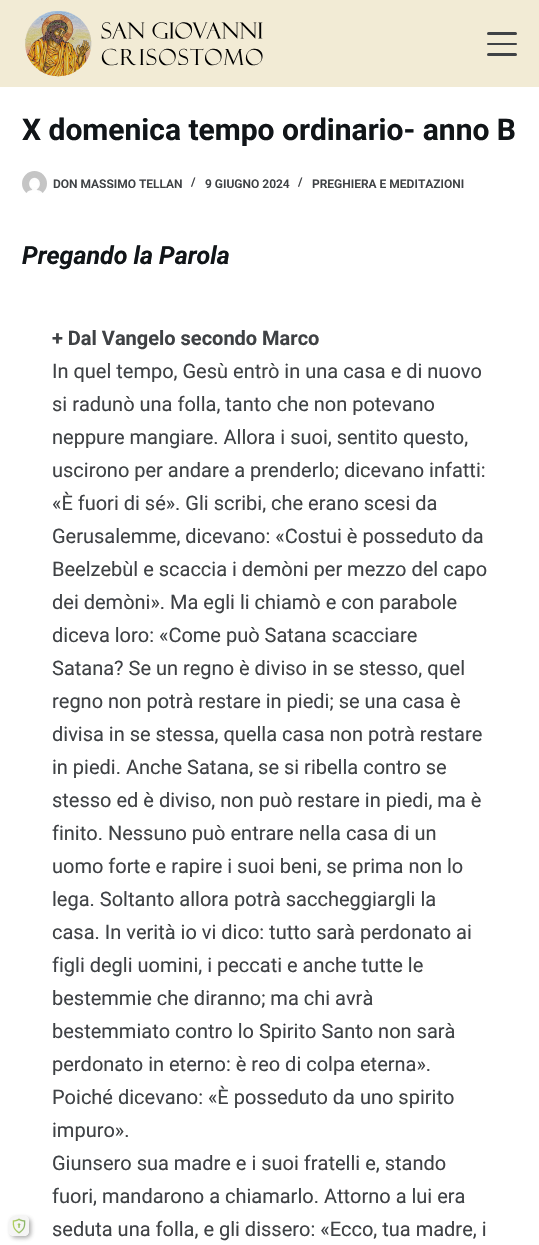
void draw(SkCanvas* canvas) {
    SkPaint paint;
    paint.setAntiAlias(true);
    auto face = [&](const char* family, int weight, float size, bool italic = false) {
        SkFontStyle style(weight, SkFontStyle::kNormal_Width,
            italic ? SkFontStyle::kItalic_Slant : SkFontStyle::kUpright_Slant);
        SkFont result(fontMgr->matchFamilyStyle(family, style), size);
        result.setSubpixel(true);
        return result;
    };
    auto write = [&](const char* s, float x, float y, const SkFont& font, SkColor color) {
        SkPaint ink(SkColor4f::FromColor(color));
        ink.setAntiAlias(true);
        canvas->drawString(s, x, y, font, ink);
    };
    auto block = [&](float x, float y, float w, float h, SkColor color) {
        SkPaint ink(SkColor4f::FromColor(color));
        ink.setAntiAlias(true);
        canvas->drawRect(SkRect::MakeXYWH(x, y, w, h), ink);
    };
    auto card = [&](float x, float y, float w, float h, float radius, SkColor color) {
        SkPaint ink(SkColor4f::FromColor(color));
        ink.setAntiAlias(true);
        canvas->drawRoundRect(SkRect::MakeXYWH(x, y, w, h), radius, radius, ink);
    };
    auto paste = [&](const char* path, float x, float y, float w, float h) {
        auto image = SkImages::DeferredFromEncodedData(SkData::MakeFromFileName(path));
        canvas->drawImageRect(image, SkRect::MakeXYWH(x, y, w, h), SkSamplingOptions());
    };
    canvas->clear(SK_ColorWHITE);
    block(0, 0, 539, 87, SkColorSetRGB(242, 235, 213));
    paste("pic1.png", 25, 11, 238, 66);
    card(487, 32, 30, 3, 1.5f, SkColorSetRGB(63, 66, 69));
    card(487, 43, 30, 2, 1, SkColorSetRGB(63, 66, 69));
    card(487, 53, 30, 3, 1.5f, SkColorSetRGB(63, 66, 69));
    auto kFont1 = face("Roboto", 700, 30);
    write("X domenica tempo ordinario- anno B", 22, 140, kFont1, SkColorSetRGB(17, 21, 24));
    paste("pic2.png", 22, 171, 25, 22);
    auto kFont2 = face("Roboto", 600, 12);
    write("DON MASSIMO TELLAN", 53, 188, kFont2, SkColorSetRGB(63, 66, 69));
    write("/", 191, 186, kFont2, SkColorSetRGB(63, 66, 69));
    write("9 GIUGNO 2024", 205, 188, kFont2, SkColorSetRGB(63, 66, 69));
    write("/", 298, 186, kFont2, SkColorSetRGB(63, 66, 69));
    write("PREGHIERA E MEDITAZIONI", 312, 188, kFont2, SkColorSetRGB(63, 66, 69));
    auto kFont3 = face("Roboto", 700, 25, true);
    write("Pregando la Parola", 22, 264, kFont3, SkColorSetRGB(17, 21, 24));
    auto kFont4 = face("Roboto", 700, 20);
    write("+ Dal Vangelo secondo Marco", 52, 345, kFont4, SkColorSetRGB(63, 66, 69));
    auto kFont5 = face("Roboto", 400, 20);
    write("In quel tempo, Gesù entrò in una casa e di nuovo", 52, 378, kFont5, SkColorSetRGB(63, 66, 69));
    write("si radunò una folla, tanto che non potevano", 52, 411, kFont5, SkColorSetRGB(63, 66, 69));
    write("neppure mangiare. Allora i suoi, sentito questo,", 52, 444, kFont5, SkColorSetRGB(63, 66, 69));
    write("uscirono per andare a prenderlo; dicevano infatti:", 52, 477, kFont5, SkColorSetRGB(63, 66, 69));
    write("«È fuori di sé». Gli scribi, che erano scesi da", 52, 510, kFont5, SkColorSetRGB(63, 66, 69));
    write("Gerusalemme, dicevano: «Costui è posseduto da", 52, 543, kFont5, SkColorSetRGB(63, 66, 69));
    write("Beelzebùl e scaccia i demòni per mezzo del capo", 52, 576, kFont5, SkColorSetRGB(63, 66, 69));
    write("dei demòni». Ma egli li chiamò e con parabole", 52, 609, kFont5, SkColorSetRGB(63, 66, 69));
    write("diceva loro: «Come può Satana scacciare", 52, 642, kFont5, SkColorSetRGB(63, 66, 69));
    write("Satana? Se un regno è diviso in se stesso, quel", 52, 675, kFont5, SkColorSetRGB(63, 66, 69));
    write("regno non potrà restare in piedi; se una casa è", 52, 708, kFont5, SkColorSetRGB(63, 66, 69));
    write("divisa in se stessa, quella casa non potrà restare", 52, 741, kFont5, SkColorSetRGB(63, 66, 69));
    write("in piedi. Anche Satana, se si ribella contro se", 52, 774, kFont5, SkColorSetRGB(63, 66, 69));
    write("stesso ed è diviso, non può restare in piedi, ma è", 52, 807, kFont5, SkColorSetRGB(63, 66, 69));
    write("finito. Nessuno può entrare nella casa di un", 52, 840, kFont5, SkColorSetRGB(63, 66, 69));
    write("uomo forte e rapire i suoi beni, se prima non lo", 52, 873, kFont5, SkColorSetRGB(63, 66, 69));
    write("lega. Soltanto allora potrà saccheggiargli la", 52, 906, kFont5, SkColorSetRGB(63, 66, 69));
    write("casa. In verità io vi dico: tutto sarà perdonato ai", 52, 939, kFont5, SkColorSetRGB(63, 66, 69));
    write("figli degli uomini, i peccati e anche tutte le", 52, 972, kFont5, SkColorSetRGB(63, 66, 69));
    write("bestemmie che diranno; ma chi avrà", 52, 1005, kFont5, SkColorSetRGB(63, 66, 69));
    write("bestemmiato contro lo Spirito Santo non sarà", 52, 1038, kFont5, SkColorSetRGB(63, 66, 69));
    write("perdonato in eterno: è reo di colpa eterna».", 52, 1071, kFont5, SkColorSetRGB(63, 66, 69));
    write("Poiché dicevano: «È posseduto da uno spirito", 52, 1104, kFont5, SkColorSetRGB(63, 66, 69));
    write("impuro».", 52, 1137, kFont5, SkColorSetRGB(63, 66, 69));
    write("Giunsero sua madre e i suoi fratelli e, stando", 52, 1170, kFont5, SkColorSetRGB(63, 66, 69));
    write("fuori, mandarono a chiamarlo. Attorno a lui era", 52, 1203, kFont5, SkColorSetRGB(63, 66, 69));
    write("seduta una folla, e gli dissero: «Ecco, tua madre, i", 52, 1236, kFont5, SkColorSetRGB(63, 66, 69));
    canvas->save();
    canvas->clipPath(SkPathBuilder(SkPathFillType::kEvenOdd).moveTo(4, 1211).lineTo(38, 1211).lineTo(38, 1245).lineTo(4, 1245).close().moveTo(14, 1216).lineTo(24, 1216).cubicTo(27, 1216, 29, 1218, 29, 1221).lineTo(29, 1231).cubicTo(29, 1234, 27, 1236, 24, 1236).lineTo(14, 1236).cubicTo(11, 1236, 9, 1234, 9, 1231).lineTo(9, 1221).cubicTo(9, 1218, 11, 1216, 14, 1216).close().detach(), true);
    paint.setColor(SkColorSetARGB(120, 77, 77, 77));
    paint.setMaskFilter(SkMaskFilter::MakeBlur(kNormal_SkBlurStyle, 2));
    canvas->drawRoundRect(SkRect::MakeXYWH(11, 1218, 20, 20), 5, 5, paint);
    paint.setMaskFilter(nullptr);
    canvas->restore();
    card(9, 1216, 20, 20, 5, SkColorSetARGB(252, 245, 245, 245));
    paste("pic3.png", 12, 1218, 14, 16);
}
